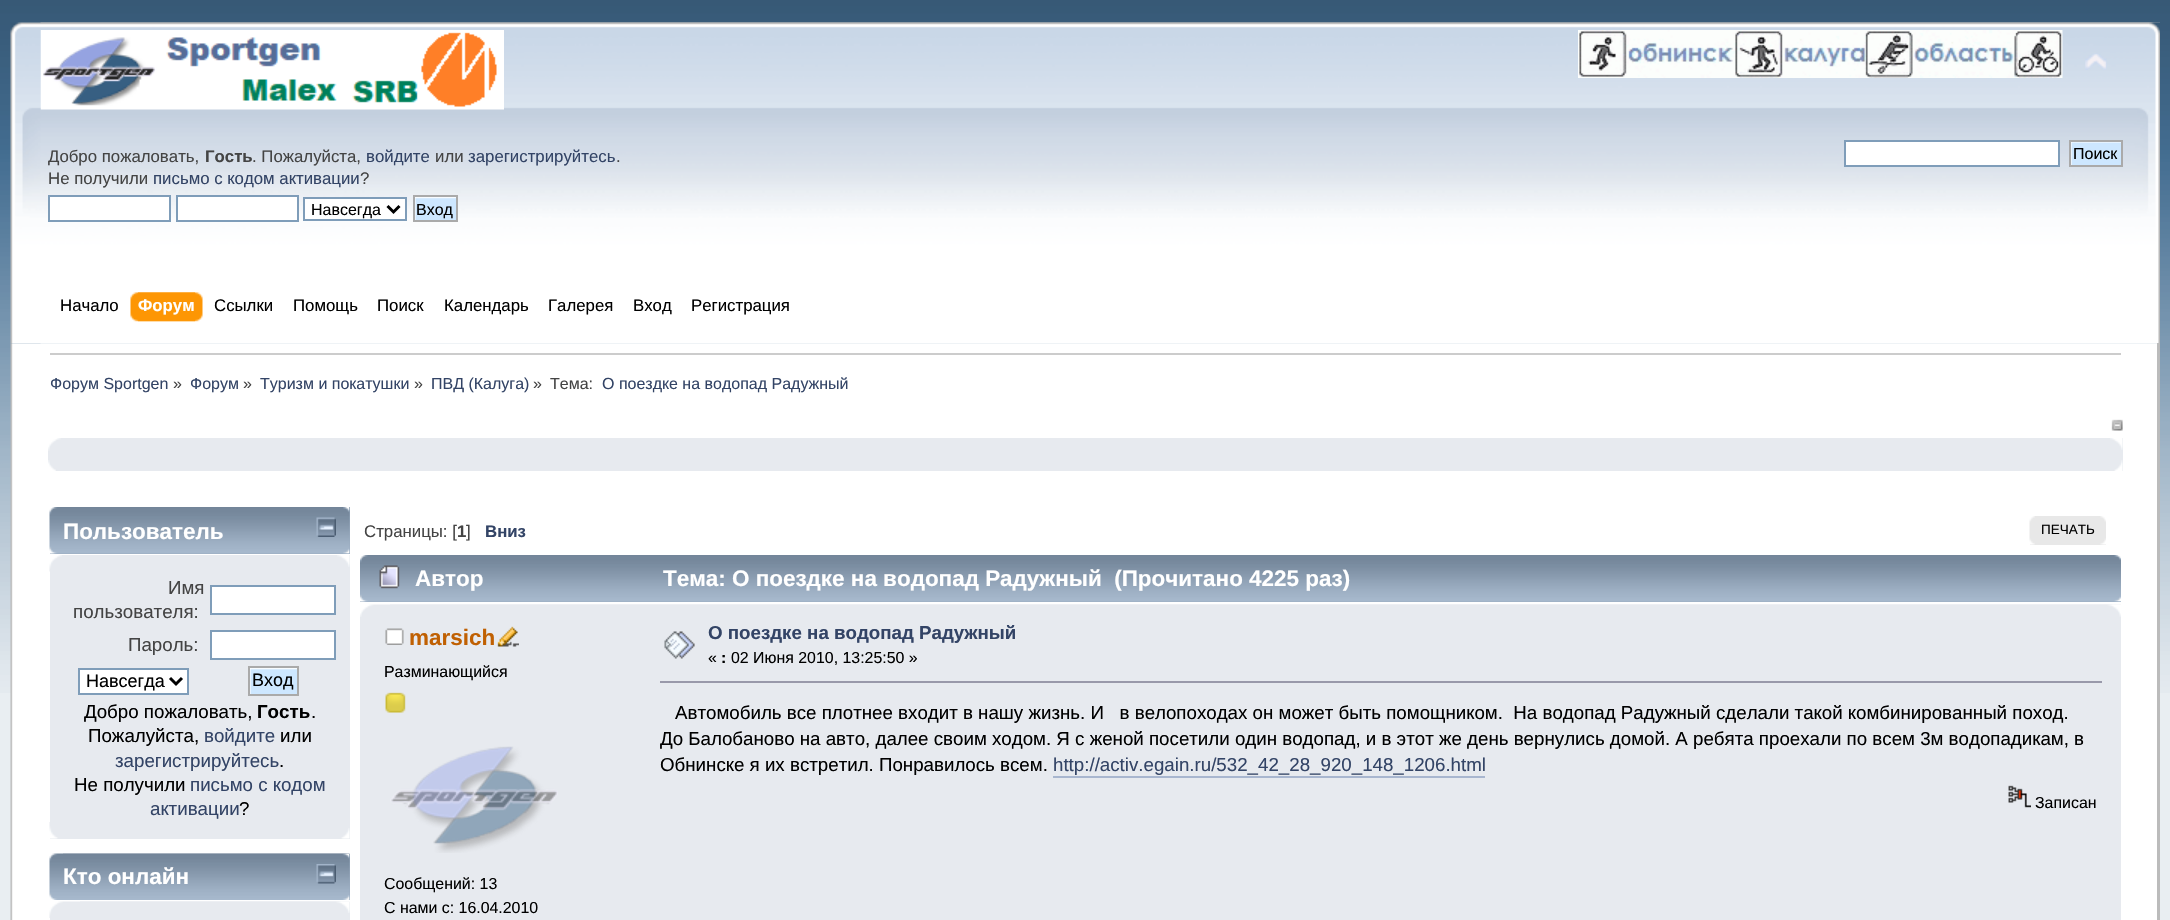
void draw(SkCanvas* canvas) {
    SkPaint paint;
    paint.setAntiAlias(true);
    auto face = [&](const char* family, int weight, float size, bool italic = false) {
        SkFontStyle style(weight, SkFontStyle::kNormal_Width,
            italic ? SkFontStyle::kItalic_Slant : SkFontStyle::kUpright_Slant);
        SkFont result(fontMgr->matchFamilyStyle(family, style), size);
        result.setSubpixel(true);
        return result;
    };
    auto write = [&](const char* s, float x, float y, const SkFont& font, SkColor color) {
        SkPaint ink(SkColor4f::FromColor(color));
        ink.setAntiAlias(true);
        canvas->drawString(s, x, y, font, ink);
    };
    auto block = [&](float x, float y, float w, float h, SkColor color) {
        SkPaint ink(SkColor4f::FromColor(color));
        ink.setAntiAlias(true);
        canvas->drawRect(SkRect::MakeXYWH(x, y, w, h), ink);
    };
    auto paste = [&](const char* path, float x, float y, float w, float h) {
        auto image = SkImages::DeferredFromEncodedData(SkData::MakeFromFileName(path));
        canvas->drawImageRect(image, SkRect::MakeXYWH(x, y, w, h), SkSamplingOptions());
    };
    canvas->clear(SkColorSetRGB(233, 238, 242));
    paste("pic1.png", 0, 0, 2170, 693);
    paste("pic2.png", 10, 22, 2150, 322);
    paste("pic3.png", 40, 22, 2120, 322);
    paste("pic4.png", 40, 30, 464, 80);
    paste("pic5.png", 1578, 30, 485, 48);
    paste("pic6.png", 2085, 53, 22, 17);
    auto kFont1 = face("Liberation Sans", 400, 16.8f);
    write("Добро пожаловать,", 48, 162, kFont1, SkColorSetRGB(68, 68, 68));
    auto kFont2 = face("Liberation Sans", 700, 16.8f);
    write("Гость", 205, 162, kFont2, SkColorSetRGB(68, 68, 68));
    write(". Пожалуйста,", 252, 162, kFont1, SkColorSetRGB(68, 68, 68));
    write("войдите", 366, 162, kFont1, SkColorSetRGB(51, 68, 102));
    write("или", 435, 162, kFont1, SkColorSetRGB(68, 68, 68));
    write("зарегистрируйтесь", 468, 162, kFont1, SkColorSetRGB(51, 68, 102));
    write(".", 616, 162, kFont1, SkColorSetRGB(68, 68, 68));
    write("Не получили", 48, 184, kFont1, SkColorSetRGB(68, 68, 68));
    write("письмо с кодом активации", 153, 184, kFont1, SkColorSetRGB(51, 68, 102));
    write("?", 360, 184, kFont1, SkColorSetRGB(68, 68, 68));
    paint.setColor(SK_ColorWHITE);
    canvas->drawRect(SkRect::MakeXYWH(49, 196, 121, 25), paint);
    paint.setStyle(SkPaint::kStroke_Style);
    paint.setStrokeWidth(2);
    paint.setColor(SkColorSetRGB(127, 157, 185));
    canvas->drawRect(SkRect::MakeXYWH(49, 196, 121, 25), paint);
    paint.setStyle(SkPaint::kFill_Style);
    paint.setColor(SK_ColorWHITE);
    canvas->drawRect(SkRect::MakeXYWH(177, 196, 121, 25), paint);
    paint.setStyle(SkPaint::kStroke_Style);
    paint.setColor(SkColorSetRGB(127, 157, 185));
    canvas->drawRect(SkRect::MakeXYWH(177, 196, 121, 25), paint);
    paint.setStyle(SkPaint::kFill_Style);
    paint.setColor(SK_ColorWHITE);
    canvas->drawRect(SkRect::MakeXYWH(304, 198, 102, 22), paint);
    paint.setStyle(SkPaint::kStroke_Style);
    paint.setColor(SkColorSetRGB(127, 157, 185));
    canvas->drawRect(SkRect::MakeXYWH(304, 198, 102, 22), paint);
    paint.setStrokeWidth(3);
    paint.setColor(SK_ColorBLACK);
    canvas->drawPath(SkPathBuilder().moveTo(387.5f, 206).lineTo(393.5f, 212).lineTo(399.5f, 206).detach(), paint);
    auto kFont3 = face("Liberation Sans", 400, 16);
    write("Навсегда", 311, 215, kFont3, SK_ColorBLACK);
    paste("pic7.png", 415, 197, 41, 23);
    paint.setStrokeWidth(2);
    paint.setColor(SkColorSetRGB(170, 170, 170));
    canvas->drawRect(SkRect::MakeXYWH(414, 196, 43, 25), paint);
    write("Вход", 416, 215, kFont3, SK_ColorBLACK);
    paint.setStyle(SkPaint::kFill_Style);
    paint.setColor(SK_ColorWHITE);
    canvas->drawRect(SkRect::MakeXYWH(1845, 141, 214, 25), paint);
    paint.setStyle(SkPaint::kStroke_Style);
    paint.setColor(SkColorSetRGB(127, 157, 185));
    canvas->drawRect(SkRect::MakeXYWH(1845, 141, 214, 25), paint);
    paste("pic8.png", 2071, 142, 50, 23);
    paint.setColor(SkColorSetRGB(170, 170, 170));
    canvas->drawRect(SkRect::MakeXYWH(2070, 141, 52, 25), paint);
    write("Поиск", 2073, 159, kFont3, SK_ColorBLACK);
    write("Начало", 60, 311, kFont1, SK_ColorBLACK);
    paste("pic9.png", 138, 292, 65, 30);
    paste("pic10.png", 130, 292, 65, 30);
    write("Форум", 138, 311, kFont2, SK_ColorWHITE);
    write("Ссылки", 214, 311, kFont1, SK_ColorBLACK);
    write("Помощь", 293, 311, kFont1, SK_ColorBLACK);
    write("Поиск", 377, 311, kFont1, SK_ColorBLACK);
    write("Календарь", 444, 311, kFont1, SK_ColorBLACK);
    write("Галерея", 548, 311, kFont1, SK_ColorBLACK);
    write("Вход", 633, 311, kFont1, SK_ColorBLACK);
    write("Регистрация", 691, 311, kFont1, SK_ColorBLACK);
    paste("pic11.png", 10, 343, 2147, 577);
    block(2157, 343, 3, 577, SkColorSetRGB(187, 187, 187));
    block(50, 353, 2071, 2, SkColorSetRGB(204, 204, 204));
    write("Форум Sportgen", 50, 389, kFont3, SkColorSetRGB(51, 68, 102));
    write("»", 173, 389, kFont3, SkColorSetRGB(68, 68, 68));
    write("Форум", 190, 389, kFont3, SkColorSetRGB(51, 68, 102));
    write("»", 243, 389, kFont3, SkColorSetRGB(68, 68, 68));
    write("Туризм и покатушки", 260, 389, kFont3, SkColorSetRGB(51, 68, 102));
    write("»", 414, 389, kFont3, SkColorSetRGB(68, 68, 68));
    write("ПВД (Калуга)", 431, 389, kFont3, SkColorSetRGB(51, 68, 102));
    write("»", 533, 389, kFont3, SkColorSetRGB(68, 68, 68));
    write("Тема:", 550, 389, kFont3, SkColorSetRGB(68, 68, 68));
    write("О поездке на водопад Радужный", 602, 389, kFont3, SkColorSetRGB(51, 68, 102));
    paste("pic12.png", 2111, 419, 12, 12);
    block(48, 438, 2075, 33, SkColorSetRGB(231, 234, 239));
    paste("pic13.png", 48, 438, 13, 13);
    paste("pic14.png", 2110, 438, 13, 12);
    paste("pic15.png", 48, 460, 8, 11);
    paste("pic16.png", 2114, 460, 9, 11);
    block(50, 507, 300, 47, SkColorSetRGB(153, 171, 191));
    paste("pic17.png", 49, 507, 301, 47);
    paste("pic18.png", 343, 507, 7, 47);
    auto kFont4 = face("Liberation Sans", 700, 22.45f);
    write("Пользователь", 63, 539, kFont4, SK_ColorWHITE);
    paste("pic19.png", 316, 517, 20, 20);
    block(50, 555, 300, 284, SkColorSetRGB(231, 234, 239));
    paste("pic20.png", 49, 555, 13, 17);
    paste("pic14.png", 337, 555, 13, 12);
    auto kFont5 = face("Liberation Sans", 400, 18.72f);
    write("Имя", 168, 594, kFont5, SkColorSetRGB(68, 68, 68));
    write("пользователя:", 73, 618, kFont5, SkColorSetRGB(68, 68, 68));
    paint.setStyle(SkPaint::kFill_Style);
    paint.setColor(SK_ColorWHITE);
    canvas->drawRect(SkRect::MakeXYWH(211, 586, 124, 28), paint);
    paint.setStyle(SkPaint::kStroke_Style);
    paint.setColor(SkColorSetRGB(127, 157, 185));
    canvas->drawRect(SkRect::MakeXYWH(211, 586, 124, 28), paint);
    write("Пароль:", 128, 651, kFont5, SkColorSetRGB(68, 68, 68));
    paint.setStyle(SkPaint::kFill_Style);
    paint.setColor(SK_ColorWHITE);
    canvas->drawRect(SkRect::MakeXYWH(211, 631, 124, 28), paint);
    paint.setStyle(SkPaint::kStroke_Style);
    paint.setColor(SkColorSetRGB(127, 157, 185));
    canvas->drawRect(SkRect::MakeXYWH(211, 631, 124, 28), paint);
    paint.setStyle(SkPaint::kFill_Style);
    paint.setColor(SK_ColorWHITE);
    canvas->drawRect(SkRect::MakeXYWH(79, 669, 109, 25), paint);
    paint.setStyle(SkPaint::kStroke_Style);
    paint.setColor(SkColorSetRGB(127, 157, 185));
    canvas->drawRect(SkRect::MakeXYWH(79, 669, 109, 25), paint);
    paint.setStrokeWidth(3);
    paint.setColor(SK_ColorBLACK);
    canvas->drawPath(SkPathBuilder().moveTo(170, 678).lineTo(176, 684).lineTo(182, 678).detach(), paint);
    auto kFont6 = face("Liberation Sans", 400, 18);
    write("Навсегда", 86, 687, kFont6, SK_ColorBLACK);
    paste("pic21.png", 250, 668, 47, 26);
    paint.setStrokeWidth(2);
    paint.setColor(SkColorSetRGB(170, 170, 170));
    canvas->drawRect(SkRect::MakeXYWH(249, 667, 49, 28), paint);
    write("Вход", 252, 686, kFont6, SK_ColorBLACK);
    write("Добро пожаловать,", 84, 718, kFont5, SK_ColorBLACK);
    auto kFont7 = face("Liberation Sans", 700, 18.72f);
    write("Гость", 257, 718, kFont7, SK_ColorBLACK);
    write(".", 311, 718, kFont5, SK_ColorBLACK);
    write("Пожалуйста,", 88, 742, kFont5, SK_ColorBLACK);
    write("войдите", 204, 742, kFont5, SkColorSetRGB(51, 68, 102));
    write("или", 280, 742, kFont5, SK_ColorBLACK);
    write("зарегистрируйтесь", 115, 767, kFont5, SkColorSetRGB(51, 68, 102));
    write(".", 279, 767, kFont5, SK_ColorBLACK);
    write("Не получили", 74, 791, kFont5, SK_ColorBLACK);
    write("письмо с кодом", 190, 791, kFont5, SkColorSetRGB(51, 68, 102));
    write("активации", 150, 815, kFont5, SkColorSetRGB(51, 68, 102));
    write("?", 239, 815, kFont5, SK_ColorBLACK);
    paste("pic22.png", 49, 822, 9, 17);
    paste("pic23.png", 341, 828, 9, 11);
    block(349, 854, 1, 46, SkColorSetRGB(153, 171, 191));
    paste("pic24.png", 49, 853, 301, 47);
    paste("pic25.png", 63, 853, 287, 47);
    write("Кто онлайн", 63, 884, kFont4, SK_ColorWHITE);
    paste("pic26.png", 316, 864, 20, 20);
    block(50, 902, 300, 18, SkColorSetRGB(231, 234, 239));
    paste("pic27.png", 49, 901, 301, 17);
    paste("pic28.png", 80, 901, 270, 12);
    write("Страницы: [", 364, 537, kFont1, SkColorSetRGB(68, 68, 68));
    write("1", 457, 537, kFont2, SkColorSetRGB(68, 68, 68));
    write("]", 466, 537, kFont1, SkColorSetRGB(68, 68, 68));
    write("Вниз", 485, 537, kFont2, SkColorSetRGB(51, 68, 102));
    block(2030, 516, 76, 29, SkColorSetRGB(232, 232, 232));
    paste("pic29.png", 2029, 516, 6, 29);
    paste("pic30.png", 2100, 516, 6, 29);
    auto kFont8 = face("Liberation Sans", 400, 13.5f);
    write("ПЕЧАТЬ", 2041, 534, kFont8, SK_ColorBLACK);
    block(360, 601, 1761, 1, SkColorSetRGB(153, 171, 191));
    paste("pic31.png", 360, 555, 1761, 47);
    paste("pic32.png", 2114, 555, 7, 47);
    paste("pic33.png", 379, 565, 21, 24);
    write("Автор", 415, 586, kFont4, SK_ColorWHITE);
    write("Тема: О поездке на водопад Радужный  (Прочитано 4225 раз)", 663, 586, kFont4, SK_ColorWHITE);
    block(360, 617, 1761, 303, SkColorSetRGB(231, 234, 239));
    paste("pic34.png", 360, 604, 1761, 13);
    paste("pic35.png", 390, 604, 1731, 13);
    paste("pic36.png", 385, 628, 19, 17);
    write("marsich", 409, 645, kFont4, SkColorSetRGB(192, 96, 2));
    paste("pic37.png", 497, 626, 22, 21);
    auto kFont9 = face("Liberation Sans", 400, 15.9f);
    write("Разминающийся", 384, 677, kFont9, SK_ColorBLACK);
    paste("pic38.png", 385, 692, 21, 21);
    paste("pic39.png", 390, 746, 168, 107);
    write("Сообщений: 13", 384, 889, kFont9, SK_ColorBLACK);
    write("C нами с: 16.04.2010", 384, 913, kFont9, SK_ColorBLACK);
    paste("pic40.png", 664, 631, 31, 28);
    write("О поездке на водопад Радужный", 708, 639, kFont7, SkColorSetRGB(51, 68, 102));
    write("«", 708, 663, kFont9, SK_ColorBLACK);
    auto kFont10 = face("Liberation Sans", 700, 15.9f);
    write(":", 721, 663, kFont10, SK_ColorBLACK);
    write("02 Июня 2010, 13:25:50 »", 731, 663, kFont9, SK_ColorBLACK);
    block(660, 681, 1442, 2, SkColorSetRGB(153, 153, 170));
    write("Автомобиль все плотнее входит в нашу жизнь. И   в велопоходах он может быть помощником.  На водопад Радужный сделали такой комбинированный поход.", 675, 719, kFont5, SK_ColorBLACK);
    write("До Балобаново на авто, далее своим ходом. Я с женой посетили один водопад, и в этот же день вернулись домой. А ребята проехали по всем 3м водопадикам, в", 660, 745, kFont5, SK_ColorBLACK);
    write("Обнинске я их встретил. Понравилось всем.", 660, 771, kFont5, SK_ColorBLACK);
    write("http://activ.egain.ru/532_42_28_920_148_1206.html", 1053, 771, kFont5, SkColorSetRGB(51, 68, 102));
    block(1053, 776, 432, 2, SkColorSetRGB(168, 182, 207));
    paste("pic41.png", 2008, 785, 23, 23);
    write("Записан", 2035, 808, kFont9, SK_ColorBLACK);
}
